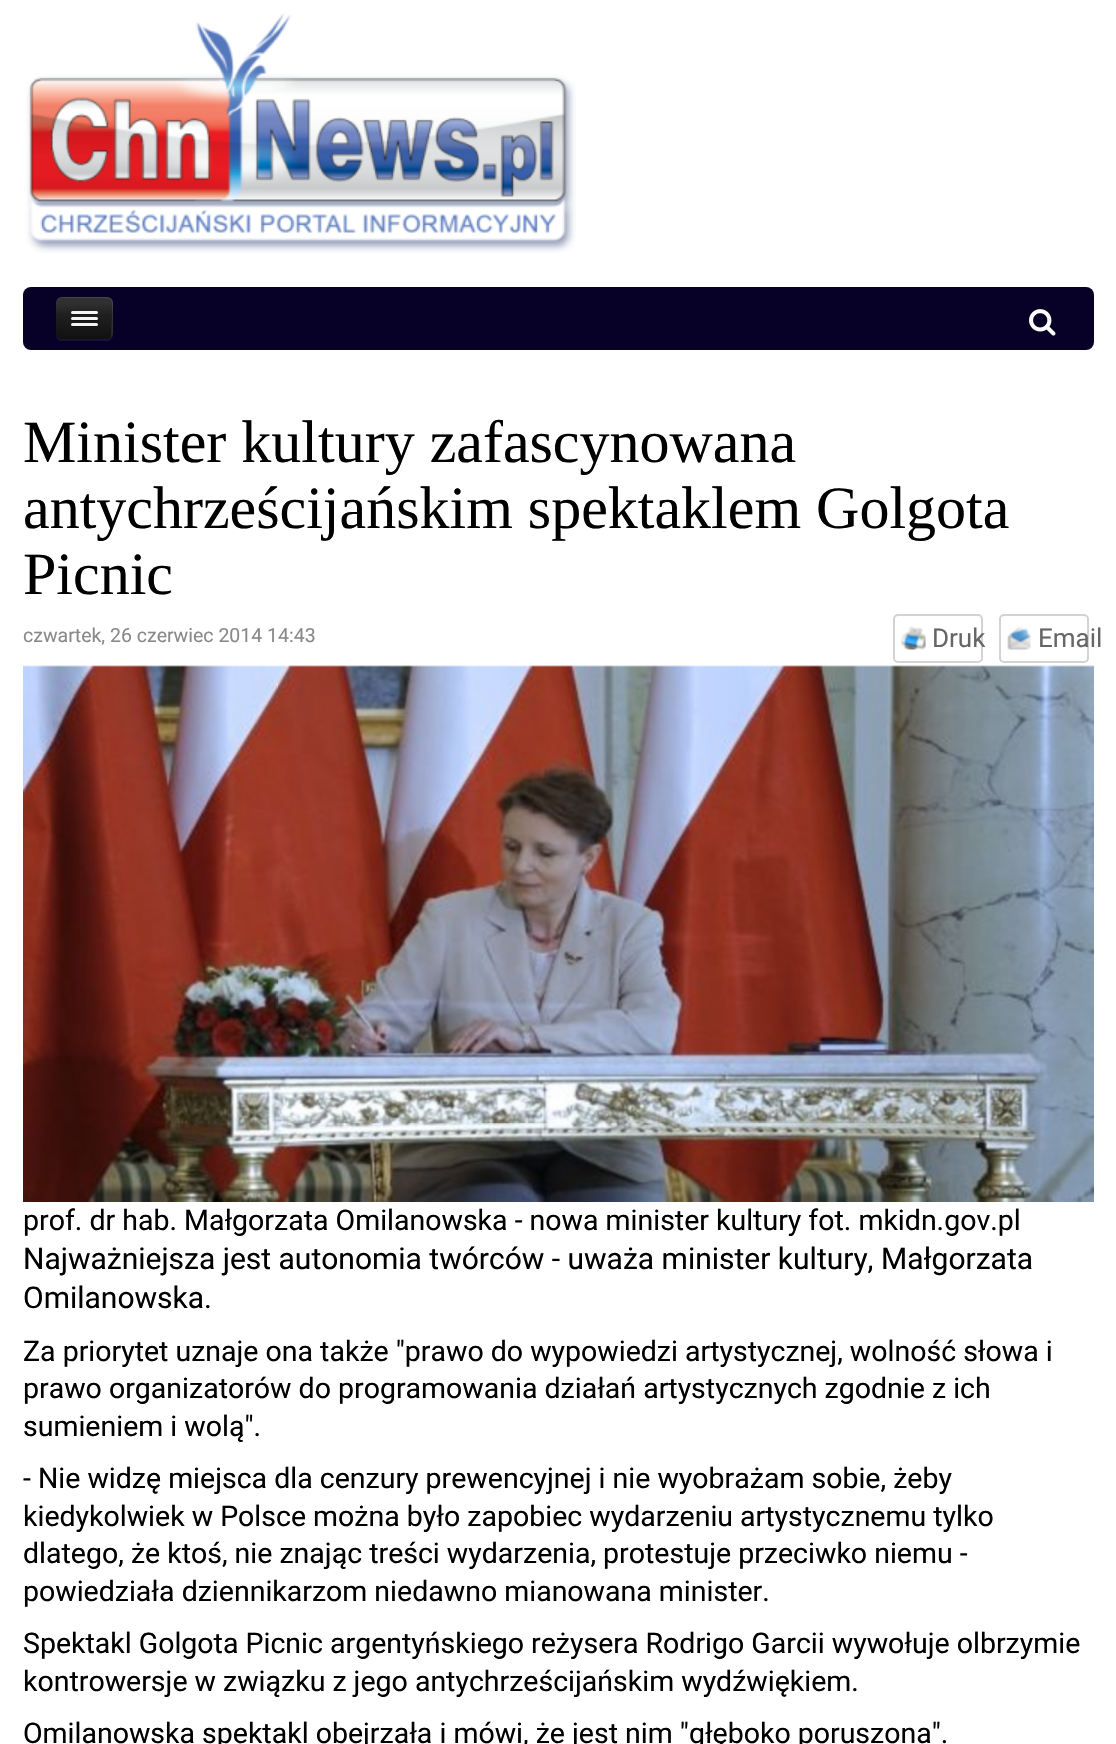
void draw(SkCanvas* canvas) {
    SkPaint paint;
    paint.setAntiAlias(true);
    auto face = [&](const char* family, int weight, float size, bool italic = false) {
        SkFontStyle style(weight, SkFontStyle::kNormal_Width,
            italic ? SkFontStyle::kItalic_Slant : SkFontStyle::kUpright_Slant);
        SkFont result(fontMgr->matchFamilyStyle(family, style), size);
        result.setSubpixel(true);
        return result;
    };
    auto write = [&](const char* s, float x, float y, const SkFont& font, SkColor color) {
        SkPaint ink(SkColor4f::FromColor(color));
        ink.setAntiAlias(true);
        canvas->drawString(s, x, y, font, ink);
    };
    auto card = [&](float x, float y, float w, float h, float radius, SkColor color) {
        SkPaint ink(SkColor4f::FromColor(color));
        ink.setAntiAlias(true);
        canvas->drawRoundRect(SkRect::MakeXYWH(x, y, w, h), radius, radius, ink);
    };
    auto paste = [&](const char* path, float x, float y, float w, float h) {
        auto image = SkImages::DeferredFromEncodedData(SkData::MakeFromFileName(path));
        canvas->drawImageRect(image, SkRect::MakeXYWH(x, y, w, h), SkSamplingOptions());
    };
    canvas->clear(SK_ColorWHITE);
    paste("pic1.png", 26, 13, 550, 240);
    card(23, 287, 1071, 63, 8, SkColorSetRGB(7, 0, 39));
    paint.setColor(SkColorSetRGB(26, 19, 55));
    canvas->drawPath(SkPathBuilder().moveTo(56, 335).cubicTo(56, 339, 59, 341, 62, 341).lineTo(107, 341).cubicTo(110, 341, 113, 338, 113, 335).lineTo(113, 305).lineTo(112, 303).lineTo(112, 328).cubicTo(112, 340, 110, 339, 99, 339).lineTo(69, 339).cubicTo(65, 339, 58, 340, 56, 335).close().detach(), paint);
    {
        const SkColor colors[] = {SkColorSetRGB(17, 17, 17), SkColorSetRGB(31, 31, 31), SkColorSetRGB(48, 48, 48)};
        const float stops[] = {0.01f, 0.57f, 0.85f};
        const SkPoint ends[] = {{84, 339}, {84, 297}};
        paint.setShader(SkGradientShader::MakeLinear(ends, colors, stops, 3, SkTileMode::kClamp));
        paint.setAlpha(255);
    }
    canvas->drawRoundRect(SkRect::MakeXYWH(56, 297, 57, 42), 6, 6, paint);
    paint.setShader(nullptr);
    paint.setColor(SkColorSetARGB(26, 255, 255, 255));
    canvas->drawPath(SkPathBuilder().moveTo(62, 298).lineTo(99, 298).cubicTo(114, 298, 112, 299, 112, 314).lineTo(111, 337).cubicTo(114, 335, 113, 331, 113, 328).lineTo(113, 318).cubicTo(113, 295, 116, 297, 92, 297).lineTo(70, 297).cubicTo(63, 297, 56, 296, 56, 304).cubicTo(56, 301, 58, 298, 62, 298).close().detach(), paint);
    paint.setColor(SkColorSetRGB(24, 24, 24));
    canvas->drawPath(SkPathBuilder().moveTo(71, 313).cubicTo(70.5f, 316, 76, 315, 76.5f, 315).lineTo(96.5f, 315).cubicTo(98, 315, 98.5f, 313, 97.5f, 312.5f).lineTo(96.5f, 313.5f).cubicTo(95, 314, 71.5f, 313.5f, 71, 313).close().detach(), paint);
    card(71, 311, 27, 3, 1.5f, SkColorSetRGB(245, 245, 245));
    paint.setColor(SkColorSetRGB(21, 21, 21));
    canvas->drawPath(SkPathBuilder().moveTo(71, 319).cubicTo(70.5f, 322, 76, 321, 76.5f, 321).lineTo(96.5f, 321).cubicTo(98, 321, 98.5f, 319, 97.5f, 318.5f).lineTo(96.5f, 319.5f).cubicTo(95, 320, 71.5f, 319.5f, 71, 319).close().detach(), paint);
    card(71, 317, 27, 3, 1.5f, SkColorSetRGB(245, 245, 245));
    paint.setColor(SkColorSetRGB(18, 18, 18));
    canvas->drawPath(SkPathBuilder().moveTo(71, 325).cubicTo(70.5f, 328, 76, 327, 76.5f, 327).lineTo(96.5f, 327).cubicTo(98, 327, 98.5f, 325, 97.5f, 324.5f).lineTo(96.5f, 325.5f).cubicTo(95, 326, 71.5f, 325.5f, 71, 325).close().detach(), paint);
    card(71, 323, 27, 3, 1.5f, SkColorSetRGB(245, 245, 245));
    paste("pic2.png", 1029, 309, 27, 27);
    auto kFont1 = face("Liberation Serif", 400, 60);
    write("Minister kultury zafascynowana", 23, 462, kFont1, SK_ColorBLACK);
    write("antychrześcijańskim spektaklem Golgota", 23, 528, kFont1, SK_ColorBLACK);
    write("Picnic", 23, 594, kFont1, SK_ColorBLACK);
    auto kFont2 = face("Roboto", 400, 19.5f);
    write("czwartek, 26 czerwiec 2014 14:43", 23, 642, kFont2, SkColorSetRGB(137, 137, 137));
    paste("pic3.png", 901, 626, 25, 24);
    paint.setStyle(SkPaint::kStroke_Style);
    paint.setStrokeWidth(2);
    paint.setColor(SkColorSetRGB(211, 211, 211));
    canvas->drawRoundRect(SkRect::MakeXYWH(894, 615, 88, 47), 4, 4, paint);
    auto kFont3 = face("Roboto", 400, 26);
    write("Druk", 932, 647, kFont3, SkColorSetRGB(102, 102, 102));
    paste("pic4.png", 1007, 626, 24, 24);
    canvas->drawRoundRect(SkRect::MakeXYWH(1000, 615, 88, 47), 4, 4, paint);
    write("Email", 1038, 647, kFont3, SkColorSetRGB(102, 102, 102));
    paste("pic5.png", 23, 665, 1071, 537);
    auto kFont4 = face("Roboto", 400, 28.5f);
    write("prof. dr hab. Małgorzata Omilanowska - nowa minister kultury fot. mkidn.gov.pl", 23, 1230, kFont4, SK_ColorBLACK);
    auto kFont5 = face("Roboto", 400, 30);
    write("Najważniejsza jest autonomia twórców - uważa minister kultury, Małgorzata", 23, 1269, kFont5, SK_ColorBLACK);
    write("Omilanowska.", 23, 1308, kFont5, SK_ColorBLACK);
    write("Za priorytet uznaje ona także \"prawo do wypowiedzi artystycznej, wolność słowa i", 23, 1361, kFont4, SK_ColorBLACK);
    write("prawo organizatorów do programowania działań artystycznych zgodnie z ich", 23, 1398, kFont4, SK_ColorBLACK);
    write("sumieniem i wolą\".", 23, 1436, kFont4, SK_ColorBLACK);
    write("- Nie widzę miejsca dla cenzury prewencyjnej i nie wyobrażam sobie, żeby", 23, 1488, kFont4, SK_ColorBLACK);
    write("kiedykolwiek w Polsce można było zapobiec wydarzeniu artystycznemu tylko", 23, 1526, kFont4, SK_ColorBLACK);
    write("dlatego, że ktoś, nie znając treści wydarzenia, protestuje przeciwko niemu -", 23, 1563, kFont4, SK_ColorBLACK);
    write("powiedziała dziennikarzom niedawno mianowana minister.", 23, 1601, kFont4, SK_ColorBLACK);
    write("Spektakl Golgota Picnic argentyńskiego reżysera Rodrigo Garcii wywołuje olbrzymie", 23, 1653, kFont4, SK_ColorBLACK);
    write("kontrowersje w związku z jego antychrześcijańskim wydźwiękiem.", 23, 1691, kFont4, SK_ColorBLACK);
    write("Omilanowska spektakl obejrzała i mówi, że jest nim \"głęboko poruszona\".", 23, 1743, kFont4, SK_ColorBLACK);
}
